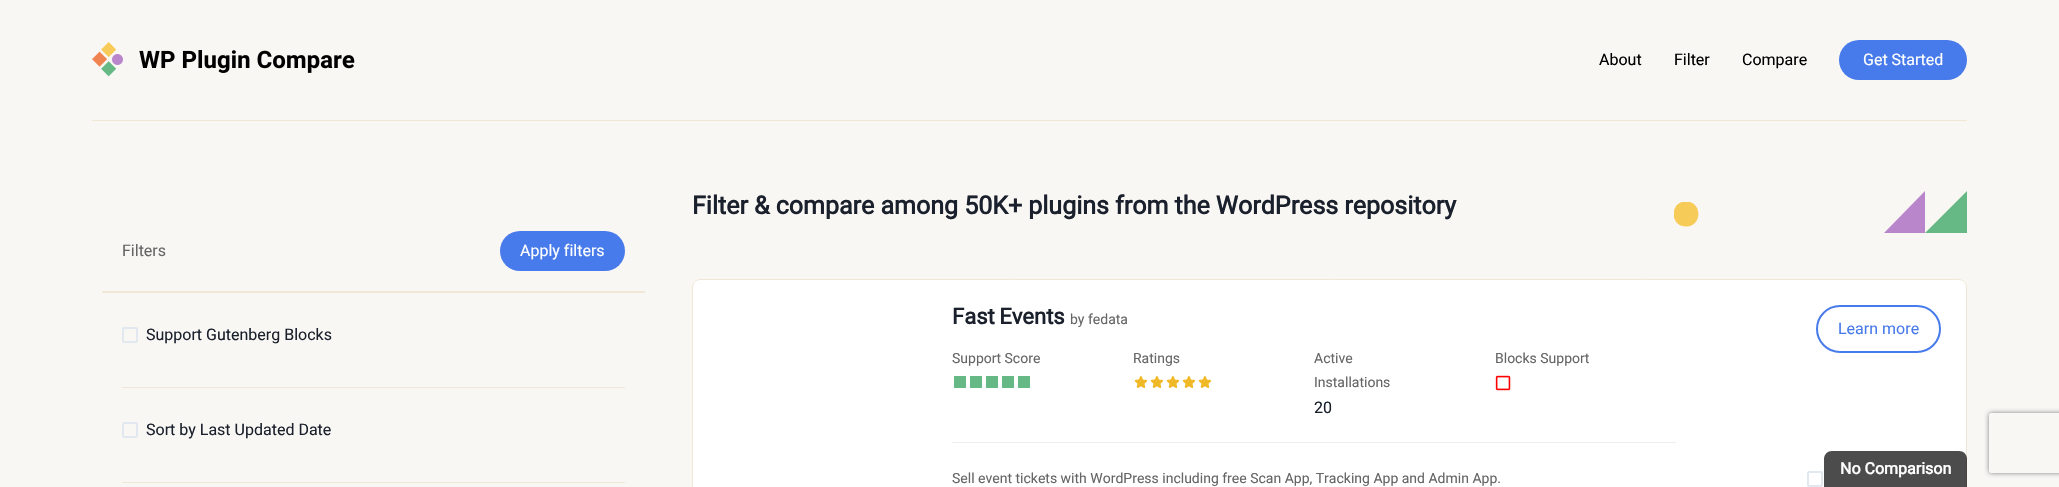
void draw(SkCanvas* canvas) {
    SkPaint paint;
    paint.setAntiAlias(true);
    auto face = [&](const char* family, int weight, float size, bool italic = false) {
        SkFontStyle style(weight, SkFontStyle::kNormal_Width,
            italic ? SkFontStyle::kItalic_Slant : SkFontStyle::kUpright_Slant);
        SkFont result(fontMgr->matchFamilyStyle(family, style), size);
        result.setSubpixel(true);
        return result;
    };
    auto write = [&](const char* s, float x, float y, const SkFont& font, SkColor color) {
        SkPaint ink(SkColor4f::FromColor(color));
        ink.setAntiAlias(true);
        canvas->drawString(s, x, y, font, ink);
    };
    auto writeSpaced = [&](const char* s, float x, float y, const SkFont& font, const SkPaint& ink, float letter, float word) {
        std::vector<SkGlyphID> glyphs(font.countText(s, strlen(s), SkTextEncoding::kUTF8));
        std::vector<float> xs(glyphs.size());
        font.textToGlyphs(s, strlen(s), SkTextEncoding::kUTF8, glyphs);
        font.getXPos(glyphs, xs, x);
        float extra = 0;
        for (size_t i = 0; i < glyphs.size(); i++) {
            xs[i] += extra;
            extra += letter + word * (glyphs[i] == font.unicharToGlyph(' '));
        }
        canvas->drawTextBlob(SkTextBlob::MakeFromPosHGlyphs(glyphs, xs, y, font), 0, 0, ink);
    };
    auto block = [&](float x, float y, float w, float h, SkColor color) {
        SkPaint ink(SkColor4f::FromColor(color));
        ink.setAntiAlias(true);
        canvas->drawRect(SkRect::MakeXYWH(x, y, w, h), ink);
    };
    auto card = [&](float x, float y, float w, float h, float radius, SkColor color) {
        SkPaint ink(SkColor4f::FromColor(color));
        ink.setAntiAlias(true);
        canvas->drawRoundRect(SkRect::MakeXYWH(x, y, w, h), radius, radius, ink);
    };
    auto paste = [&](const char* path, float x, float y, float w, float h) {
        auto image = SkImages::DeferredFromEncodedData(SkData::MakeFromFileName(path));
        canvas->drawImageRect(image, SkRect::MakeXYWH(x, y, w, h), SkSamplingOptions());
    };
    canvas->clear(SkColorSetRGB(249, 247, 244));
    block(92, 120, 1875, 1, SkColorSetRGB(240, 231, 215));
    paste("pic1.png", 92, 42, 263, 35);
    auto kFont1 = face("Heebo", 400, 16);
    write("About", 1599, 65, kFont1, SK_ColorBLACK);
    write("Filter", 1674, 65, kFont1, SK_ColorBLACK);
    write("Compare", 1742, 65, kFont1, SK_ColorBLACK);
    card(1839, 40, 128, 40, 20, SkColorSetRGB(71, 122, 234));
    write("Get Started", 1863, 65, kFont1, SK_ColorWHITE);
    block(102, 291, 543, 2, SkColorSetRGB(240, 231, 215));
    write("Filters", 122, 256, kFont1, SkColorSetRGB(102, 102, 102));
    card(500, 231, 125, 40, 20, SkColorSetRGB(71, 122, 234));
    write("Apply filters", 520, 256, kFont1, SK_ColorWHITE);
    block(122, 387, 503, 1, SkColorSetRGB(240, 231, 215));
    paint.setStyle(SkPaint::kStroke_Style);
    paint.setStrokeWidth(2);
    paint.setColor(SkColorSetRGB(226, 232, 240));
    canvas->drawRoundRect(SkRect::MakeXYWH(123, 328, 14, 14), 1, 1, paint);
    write("Support Gutenberg Blocks", 146, 340, kFont1, SkColorSetRGB(26, 32, 44));
    block(122, 482, 503, 1, SkColorSetRGB(240, 231, 215));
    canvas->drawRoundRect(SkRect::MakeXYWH(123, 423, 14, 14), 1, 1, paint);
    write("Sort by Last Updated Date", 146, 435, kFont1, SkColorSetRGB(26, 32, 44));
    auto kFont2 = face("Heebo", 700, 25);
    paint.setStyle(SkPaint::kFill_Style);
    paint.setColor(SkColorSetRGB(26, 32, 44));
    writeSpaced("Filter & compare among 50K+ plugins from the WordPress repository", 692, 214, kFont2, paint, 0, -0.1f);
    canvas->save();
    canvas->clipRect(SkRect::MakeXYWH(1674, 202, 25, 25));
    paint.setColor(SkColorSetRGB(247, 203, 88));
    canvas->drawPath(SkPathBuilder().moveTo(1686, 226.5f).cubicTo(1669.5f, 226.5f, 1669.5f, 201.5f, 1686, 201.5f).cubicTo(1702.5f, 201.5f, 1702.5f, 226.5f, 1686, 226.5f).close().detach(), paint);
    canvas->restore();
    paint.setColor(SkColorSetRGB(185, 134, 204));
    canvas->drawPath(SkPathBuilder().moveTo(1884, 233).lineTo(1925, 233).lineTo(1925, 191).close().detach(), paint);
    paint.setColor(SkColorSetRGB(102, 184, 132));
    canvas->drawPath(SkPathBuilder().moveTo(1925, 233).lineTo(1967, 233).lineTo(1967, 191).close().detach(), paint);
    paint.setColor(SK_ColorWHITE);
    canvas->drawPath(SkPathBuilder().moveTo(700, 279).lineTo(1959, 279).cubicTo(1963.5f, 279, 1967, 282.5f, 1967, 287).lineTo(1967, 487).lineTo(692, 487).lineTo(692, 287).cubicTo(692, 282.5f, 695.5f, 279, 700, 279).close().detach(), paint);
    paint.setStyle(SkPaint::kStroke_Style);
    paint.setStrokeWidth(1);
    paint.setColor(SkColorSetRGB(240, 231, 215));
    canvas->drawRoundRect(SkRect::MakeXYWH(692.5f, 279.5f, 1274, 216), 7.5f, 7.5f, paint);
    auto kFont3 = face("Heebo", 700, 22);
    paint.setStyle(SkPaint::kFill_Style);
    paint.setColor(SkColorSetRGB(26, 32, 44));
    writeSpaced("Fast Events", 952, 324, kFont3, paint, 0, -1);
    auto kFont4 = face("Heebo", 400, 14);
    write("by fedata", 1070, 324, kFont4, SkColorSetRGB(102, 102, 102));
    write("Support Score", 952, 363, kFont4, SkColorSetRGB(102, 102, 102));
    block(954, 376, 12, 12, SkColorSetRGB(102, 184, 132));
    block(970, 376, 12, 12, SkColorSetRGB(102, 184, 132));
    block(986, 376, 12, 12, SkColorSetRGB(102, 184, 132));
    block(1002, 376, 12, 12, SkColorSetRGB(102, 184, 132));
    block(1018, 376, 12, 12, SkColorSetRGB(102, 184, 132));
    write("Ratings", 1133, 363, kFont4, SkColorSetRGB(102, 102, 102));
    paste("pic2.png", 1134, 376, 14, 12);
    paste("pic2.png", 1150, 376, 14, 12);
    paste("pic2.png", 1166, 376, 14, 12);
    paste("pic2.png", 1182, 376, 14, 12);
    paste("pic2.png", 1198, 376, 14, 12);
    write("Active", 1314, 363, kFont4, SkColorSetRGB(102, 102, 102));
    write("Installations", 1314, 387, kFont4, SkColorSetRGB(102, 102, 102));
    write("20", 1314, 413, kFont1, SkColorSetRGB(26, 32, 44));
    write("Blocks Support", 1495, 363, kFont4, SkColorSetRGB(102, 102, 102));
    paste("pic3.png", 1495, 375, 16, 16);
    block(952, 442, 724, 1, SkColorSetRGB(238, 238, 238));
    write("Sell event tickets with WordPress including free Scan App, Tracking App and Admin App.", 952, 483, kFont4, SkColorSetRGB(102, 102, 102));
    paint.setStyle(SkPaint::kStroke_Style);
    paint.setStrokeWidth(2);
    paint.setColor(SkColorSetRGB(71, 122, 234));
    canvas->drawRoundRect(SkRect::MakeXYWH(1817, 306, 123, 46), 23, 23, paint);
    write("Learn more", 1838, 334, kFont1, SkColorSetRGB(71, 122, 234));
    paint.setColor(SkColorSetRGB(226, 232, 240));
    canvas->drawRoundRect(SkRect::MakeXYWH(1808, 472, 14, 14), 1, 1, paint);
    paint.setStyle(SkPaint::kFill_Style);
    paint.setColor(SkColorSetARGB(179, 0, 0, 0));
    canvas->drawPath(SkPathBuilder().moveTo(1832, 451).lineTo(1959, 451).cubicTo(1963.5f, 451, 1967, 454.5f, 1967, 459).lineTo(1967, 487).lineTo(1824, 487).lineTo(1824, 459).cubicTo(1824, 454.5f, 1827.5f, 451, 1832, 451).close().detach(), paint);
    auto kFont5 = face("Heebo", 700, 16);
    write("No Comparison", 1840, 474, kFont5, SK_ColorWHITE);
    canvas->save();
    canvas->clipPath(SkPathBuilder(SkPathFillType::kEvenOdd).moveTo(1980, 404).lineTo(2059, 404).lineTo(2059, 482).lineTo(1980, 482).close().moveTo(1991, 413).lineTo(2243, 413).cubicTo(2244, 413, 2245, 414, 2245, 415).lineTo(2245, 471).cubicTo(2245, 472, 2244, 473, 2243, 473).lineTo(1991, 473).cubicTo(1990, 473, 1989, 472, 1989, 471).lineTo(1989, 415).cubicTo(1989, 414, 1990, 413, 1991, 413).close().detach(), true);
    paint.setColor(SkColorSetRGB(128, 128, 128));
    paint.setMaskFilter(SkMaskFilter::MakeBlur(kNormal_SkBlurStyle, 2.5f));
    canvas->drawRoundRect(SkRect::MakeXYWH(1989, 413, 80, 60), 2, 2, paint);
    paint.setMaskFilter(nullptr);
    canvas->restore();
}
